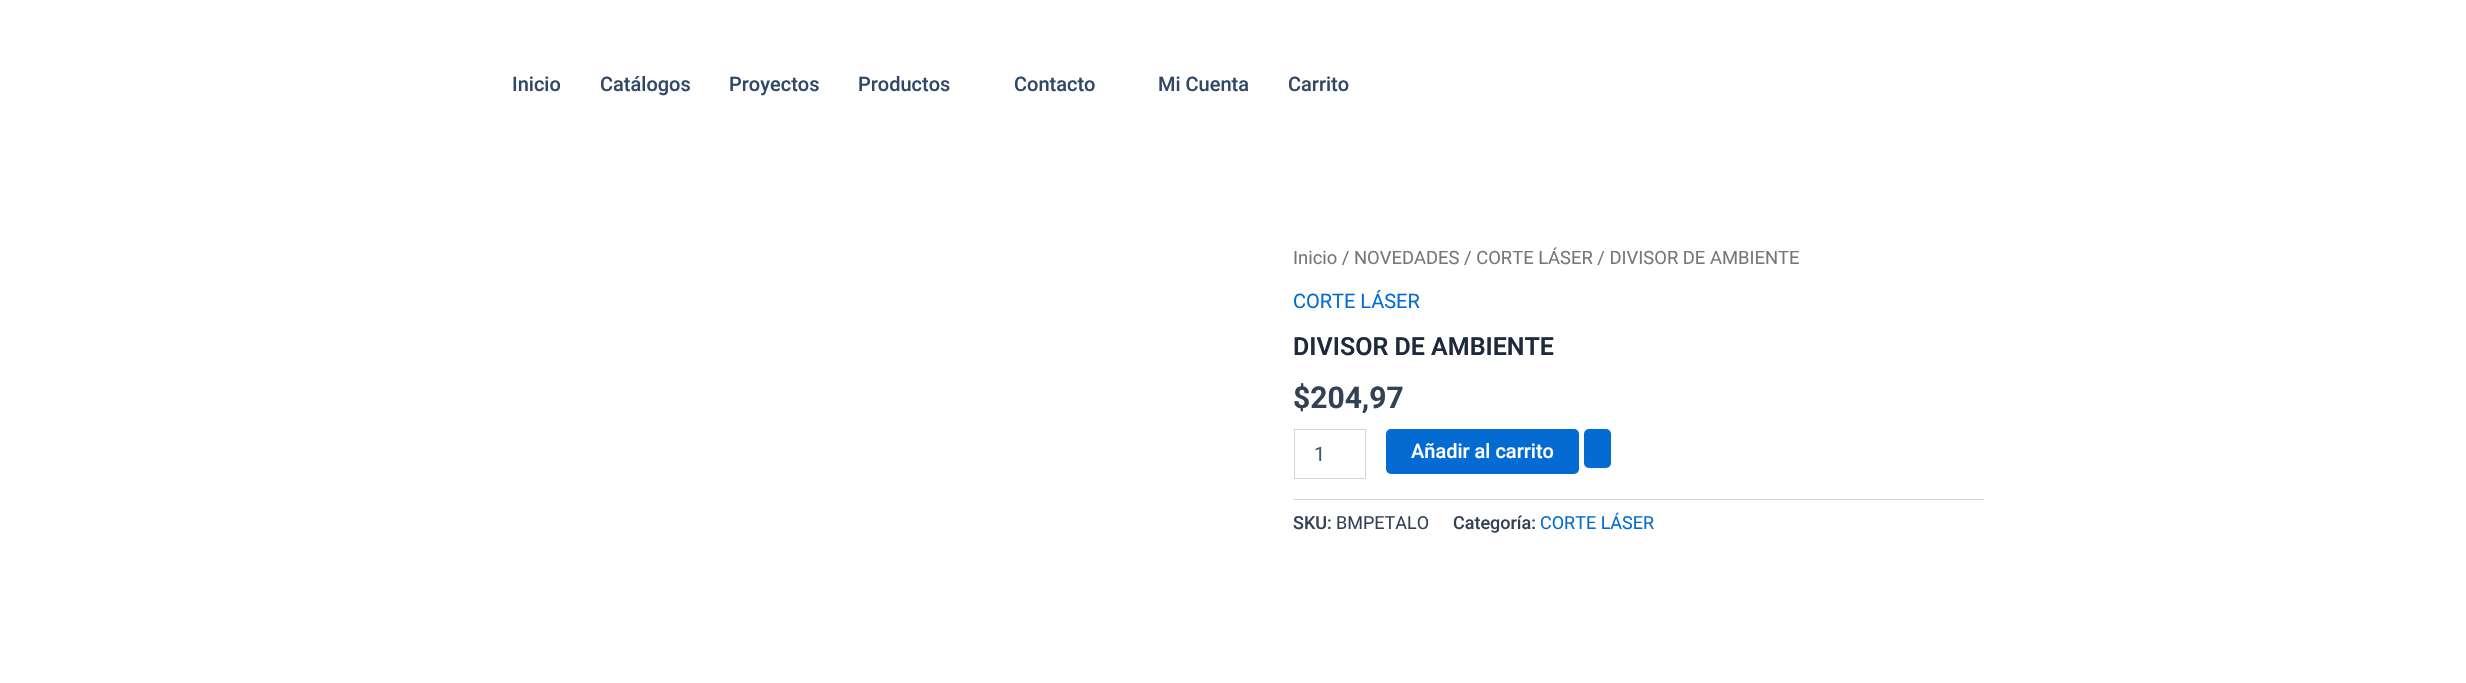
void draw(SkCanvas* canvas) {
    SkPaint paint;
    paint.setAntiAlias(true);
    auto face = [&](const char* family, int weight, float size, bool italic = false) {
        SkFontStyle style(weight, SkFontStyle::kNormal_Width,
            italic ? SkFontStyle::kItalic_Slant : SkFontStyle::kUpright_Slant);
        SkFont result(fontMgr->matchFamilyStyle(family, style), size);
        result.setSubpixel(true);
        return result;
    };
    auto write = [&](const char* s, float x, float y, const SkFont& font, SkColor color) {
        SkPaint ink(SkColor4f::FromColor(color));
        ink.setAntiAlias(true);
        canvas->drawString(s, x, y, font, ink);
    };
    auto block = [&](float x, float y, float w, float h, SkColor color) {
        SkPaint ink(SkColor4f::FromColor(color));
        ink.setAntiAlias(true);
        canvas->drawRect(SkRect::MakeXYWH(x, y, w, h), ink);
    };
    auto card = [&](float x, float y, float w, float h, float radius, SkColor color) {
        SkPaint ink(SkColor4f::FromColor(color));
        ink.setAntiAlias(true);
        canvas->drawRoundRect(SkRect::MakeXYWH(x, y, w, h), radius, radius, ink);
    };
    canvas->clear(SK_ColorWHITE);
    auto kFont1 = face("Roboto", 500, 20);
    write("Inicio", 512, 91, kFont1, SkColorSetRGB(48, 71, 102));
    write("Catálogos", 600, 91, kFont1, SkColorSetRGB(48, 71, 102));
    write("Proyectos", 729, 91, kFont1, SkColorSetRGB(48, 71, 102));
    write("Productos", 858, 91, kFont1, SkColorSetRGB(48, 71, 102));
    write("Contacto", 1014, 91, kFont1, SkColorSetRGB(48, 71, 102));
    write("Mi Cuenta", 1158, 91, kFont1, SkColorSetRGB(48, 71, 102));
    write("Carrito", 1288, 91, kFont1, SkColorSetRGB(48, 71, 102));
    auto kFont2 = face("Roboto", 400, 18.4f);
    write("Inicio / NOVEDADES / CORTE LÁSER / DIVISOR DE AMBIENTE", 1293, 264, kFont2, SkColorSetRGB(119, 119, 119));
    auto kFont3 = face("Roboto", 400, 20);
    write("CORTE LÁSER", 1293, 308, kFont3, SkColorSetRGB(4, 107, 210));
    auto kFont4 = face("Roboto", 600, 25);
    write("DIVISOR DE AMBIENTE", 1293, 355, kFont4, SkColorSetRGB(30, 41, 59));
    auto kFont5 = face("Roboto", 700, 30);
    write("$204,97", 1293, 408, kFont5, SkColorSetRGB(51, 65, 85));
    paint.setStyle(SkPaint::kStroke_Style);
    paint.setStrokeWidth(1);
    paint.setColor(SkColorSetRGB(209, 213, 219));
    canvas->drawRect(SkRect::MakeXYWH(1294.5f, 429.5f, 71, 49), paint);
    write("1", 1314, 461, kFont3, SkColorSetRGB(71, 85, 105));
    card(1386, 429, 193, 45, 5, SkColorSetRGB(4, 107, 210));
    write("Añadir al carrito", 1411, 458, kFont1, SK_ColorWHITE);
    paint.setStyle(SkPaint::kFill_Style);
    paint.setColor(SkColorSetARGB(13, 0, 0, 0));
    paint.setMaskFilter(SkMaskFilter::MakeBlur(kNormal_SkBlurStyle, 1));
    canvas->drawRoundRect(SkRect::MakeXYWH(1584, 430, 27, 39), 5, 5, paint);
    paint.setMaskFilter(nullptr);
    card(1584, 429, 27, 39, 5, SkColorSetRGB(4, 107, 210));
    block(1294, 499, 690, 1, SkColorSetRGB(209, 213, 219));
    auto kFont6 = face("Roboto", 500, 18);
    write("SKU:", 1293, 529, kFont6, SkColorSetRGB(51, 65, 85));
    auto kFont7 = face("Roboto", 400, 18);
    write("BMPETALO", 1336, 529, kFont7, SkColorSetRGB(51, 65, 85));
    write("Categoría:", 1453, 529, kFont6, SkColorSetRGB(51, 65, 85));
    write("CORTE LÁSER", 1540, 529, kFont7, SkColorSetRGB(4, 107, 210));
}
